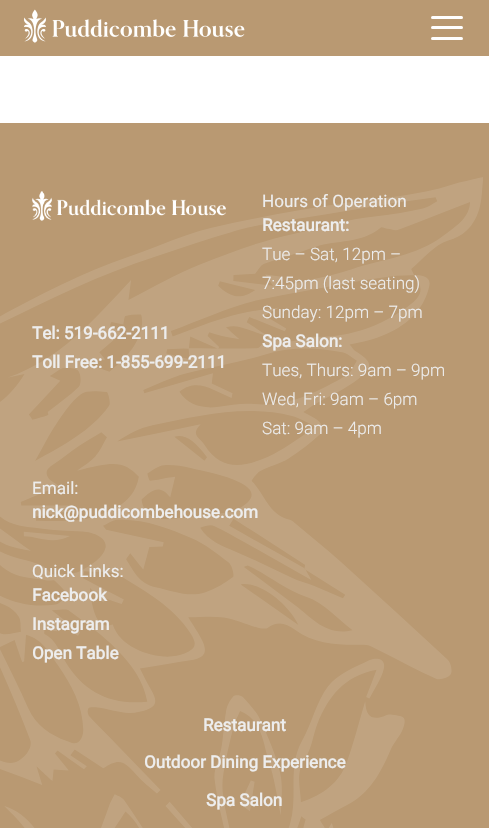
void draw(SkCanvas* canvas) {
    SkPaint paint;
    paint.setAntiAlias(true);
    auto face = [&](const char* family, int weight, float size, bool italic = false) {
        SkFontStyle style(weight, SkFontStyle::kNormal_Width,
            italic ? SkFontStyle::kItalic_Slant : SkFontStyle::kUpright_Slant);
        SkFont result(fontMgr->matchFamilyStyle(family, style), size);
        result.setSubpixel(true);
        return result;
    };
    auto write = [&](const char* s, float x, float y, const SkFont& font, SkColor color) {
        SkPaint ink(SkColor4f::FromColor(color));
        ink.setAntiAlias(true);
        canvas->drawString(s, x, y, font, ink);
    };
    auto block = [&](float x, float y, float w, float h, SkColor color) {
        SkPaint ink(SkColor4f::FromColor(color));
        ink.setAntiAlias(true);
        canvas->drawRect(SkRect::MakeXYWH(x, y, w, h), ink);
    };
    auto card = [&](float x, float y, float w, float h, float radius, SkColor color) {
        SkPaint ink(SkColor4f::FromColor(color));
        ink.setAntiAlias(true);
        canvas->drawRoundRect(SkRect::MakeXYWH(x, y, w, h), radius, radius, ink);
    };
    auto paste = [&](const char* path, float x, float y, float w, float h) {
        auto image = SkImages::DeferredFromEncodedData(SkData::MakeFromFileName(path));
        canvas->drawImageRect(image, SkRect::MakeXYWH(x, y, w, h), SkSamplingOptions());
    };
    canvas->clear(SK_ColorWHITE);
    block(0, 0, 489, 56, SkColorSetRGB(185, 153, 114));
    paste("pic1.png", 24, 9, 221, 34);
    card(431, 16, 32, 3, 1.5f, SK_ColorWHITE);
    card(431, 26, 32, 3, 1.5f, SK_ColorWHITE);
    card(431, 37, 32, 3, 1.5f, SK_ColorWHITE);
    block(0, 123, 489, 705, SkColorSetRGB(185, 153, 114));
    paste("pic2.png", 0, 177, 483, 651);
    paste("pic3.png", 32, 191, 194, 30);
    auto kFont1 = face("Roboto", 700, 17.1f);
    write("Tel: 519-662-2111", 32, 339, kFont1, SkColorSetRGB(237, 237, 237));
    write("Toll Free: 1-855-699-2111", 32, 368, kFont1, SkColorSetRGB(237, 237, 237));
    auto kFont2 = face("Roboto", 400, 17.1f);
    write("Hours of Operation", 262, 207, kFont2, SkColorSetRGB(237, 237, 237));
    write("Restaurant:", 262, 231, kFont1, SkColorSetRGB(237, 237, 237));
    auto kFont3 = face("Roboto", 300, 17.1f);
    write("Tue – Sat, 12pm –", 262, 260, kFont3, SkColorSetRGB(237, 237, 237));
    write("7:45pm (last seating)", 262, 289, kFont3, SkColorSetRGB(237, 237, 237));
    write("Sunday: 12pm – 7pm", 262, 318, kFont3, SkColorSetRGB(237, 237, 237));
    write("Spa Salon:", 262, 347, kFont1, SkColorSetRGB(237, 237, 237));
    write("Tues, Thurs: 9am – 9pm", 262, 376, kFont3, SkColorSetRGB(237, 237, 237));
    write("Wed, Fri: 9am – 6pm", 262, 405, kFont3, SkColorSetRGB(237, 237, 237));
    write("Sat: 9am – 4pm", 262, 434, kFont3, SkColorSetRGB(237, 237, 237));
    write("Email:", 32, 494, kFont2, SkColorSetRGB(237, 237, 237));
    write("nick@puddicombehouse.com", 32, 518, kFont1, SkColorSetRGB(237, 237, 237));
    write("Quick Links:", 32, 577, kFont2, SkColorSetRGB(237, 237, 237));
    write("Facebook", 32, 601, kFont1, SkColorSetRGB(237, 237, 237));
    write("Instagram", 32, 630, kFont1, SkColorSetRGB(237, 237, 237));
    write("Open Table", 32, 659, kFont1, SkColorSetRGB(237, 237, 237));
    write("Restaurant", 203, 731, kFont1, SkColorSetRGB(237, 237, 237));
    write("Outdoor Dining Experience", 144, 768, kFont1, SkColorSetRGB(237, 237, 237));
    write("Spa Salon", 206, 806, kFont1, SkColorSetRGB(237, 237, 237));
}
